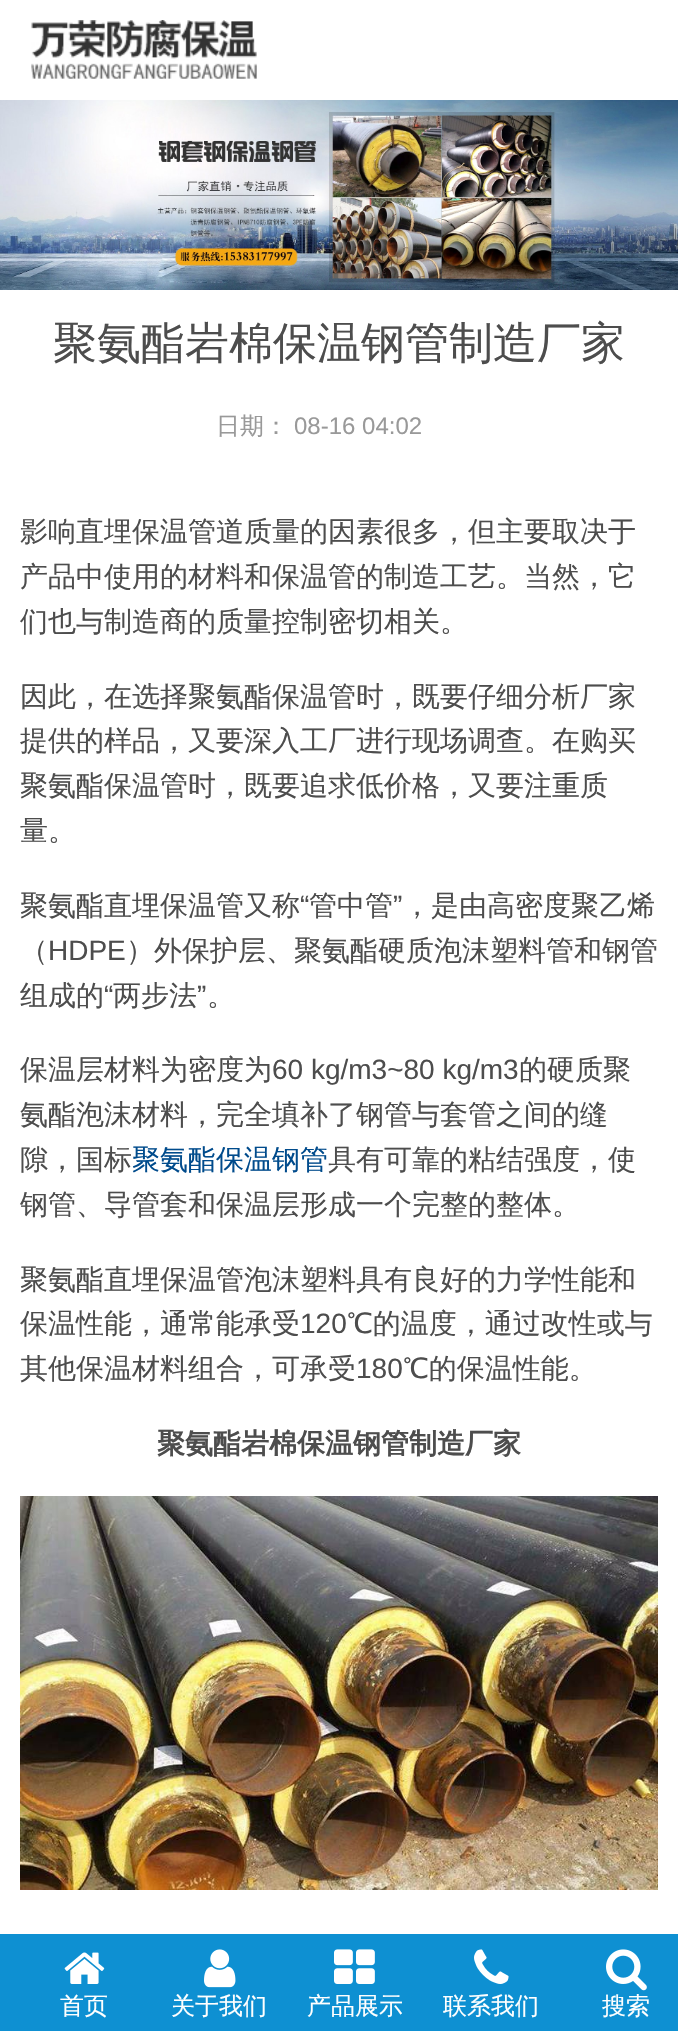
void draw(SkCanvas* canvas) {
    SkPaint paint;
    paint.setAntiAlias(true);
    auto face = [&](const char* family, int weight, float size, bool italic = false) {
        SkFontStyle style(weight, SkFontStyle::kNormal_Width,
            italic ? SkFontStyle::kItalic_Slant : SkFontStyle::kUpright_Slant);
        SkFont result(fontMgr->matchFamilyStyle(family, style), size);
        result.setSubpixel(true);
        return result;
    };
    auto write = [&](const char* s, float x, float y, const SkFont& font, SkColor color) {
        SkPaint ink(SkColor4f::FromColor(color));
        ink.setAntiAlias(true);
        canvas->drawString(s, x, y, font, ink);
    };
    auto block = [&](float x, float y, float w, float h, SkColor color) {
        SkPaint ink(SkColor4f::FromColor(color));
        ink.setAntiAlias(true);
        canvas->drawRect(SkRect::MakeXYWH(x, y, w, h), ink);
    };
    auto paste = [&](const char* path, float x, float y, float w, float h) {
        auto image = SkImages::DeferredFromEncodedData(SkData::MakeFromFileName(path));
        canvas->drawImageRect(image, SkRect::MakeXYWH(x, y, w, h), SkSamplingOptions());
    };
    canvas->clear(SK_ColorWHITE);
    paste("pic1.png", 31, 20, 226, 59);
    paste("pic2.png", 0, 100, 678, 190);
    auto kFont1 = face("WenQuanYi Zen Hei", 500, 44);
    write("聚氨酯岩棉保温钢管制造厂家", 53, 358, kFont1, SkColorSetRGB(77, 77, 77));
    auto kFont2 = face("WenQuanYi Zen Hei", 500, 24);
    write("日期：", 216, 434, kFont2, SkColorSetRGB(153, 153, 153));
    auto kFont3 = face("Liberation Sans", 400, 24);
    write("08-16 04:02", 294, 434, kFont3, SkColorSetRGB(153, 153, 153));
    auto kFont4 = face("WenQuanYi Zen Hei", 500, 28);
    write("影响直埋保温管道质量的因素很多，但主要取决于", 20, 541, kFont4, SkColorSetRGB(77, 77, 77));
    write("产品中使用的材料和保温管的制造工艺。当然，它", 20, 586, kFont4, SkColorSetRGB(77, 77, 77));
    write("们也与制造商的质量控制密切相关。", 20, 631, kFont4, SkColorSetRGB(77, 77, 77));
    write("因此，在选择聚氨酯保温管时，既要仔细分析厂家", 20, 706, kFont4, SkColorSetRGB(77, 77, 77));
    write("提供的样品，又要深入工厂进行现场调查。在购买", 20, 750, kFont4, SkColorSetRGB(77, 77, 77));
    write("聚氨酯保温管时，既要追求低价格，又要注重质", 20, 795, kFont4, SkColorSetRGB(77, 77, 77));
    write("量。", 20, 840, kFont4, SkColorSetRGB(77, 77, 77));
    write("聚氨酯直埋保温管又称", 20, 915, kFont4, SkColorSetRGB(77, 77, 77));
    auto kFont5 = face("Liberation Sans", 400, 28);
    write("“", 300, 915, kFont5, SkColorSetRGB(77, 77, 77));
    write("管中管", 309, 915, kFont4, SkColorSetRGB(77, 77, 77));
    write("”", 393, 915, kFont5, SkColorSetRGB(77, 77, 77));
    write("，是由高密度聚乙烯", 403, 915, kFont4, SkColorSetRGB(77, 77, 77));
    write("（", 20, 960, kFont4, SkColorSetRGB(77, 77, 77));
    write("HDPE", 48, 960, kFont5, SkColorSetRGB(77, 77, 77));
    write("）外保护层、聚氨酯硬质泡沫塑料管和钢管", 126, 960, kFont4, SkColorSetRGB(77, 77, 77));
    write("组成的", 20, 1005, kFont4, SkColorSetRGB(77, 77, 77));
    write("“", 104, 1005, kFont5, SkColorSetRGB(77, 77, 77));
    write("两步法", 113, 1005, kFont4, SkColorSetRGB(77, 77, 77));
    write("”", 197, 1005, kFont5, SkColorSetRGB(77, 77, 77));
    write("。", 207, 1005, kFont4, SkColorSetRGB(77, 77, 77));
    write("保温层材料为密度为", 20, 1079, kFont4, SkColorSetRGB(77, 77, 77));
    write("60 kg/m3~80 kg/m3", 272, 1079, kFont5, SkColorSetRGB(77, 77, 77));
    write("的硬质聚", 519, 1079, kFont4, SkColorSetRGB(77, 77, 77));
    write("氨酯泡沫材料，完全填补了钢管与套管之间的缝", 20, 1124, kFont4, SkColorSetRGB(77, 77, 77));
    write("隙，国标", 20, 1169, kFont4, SkColorSetRGB(77, 77, 77));
    write("聚氨酯保温钢管", 132, 1169, kFont4, SkColorSetRGB(0, 75, 140));
    write("具有可靠的粘结强度，使", 328, 1169, kFont4, SkColorSetRGB(77, 77, 77));
    write("钢管、导管套和保温层形成一个完整的整体。", 20, 1214, kFont4, SkColorSetRGB(77, 77, 77));
    write("聚氨酯直埋保温管泡沫塑料具有良好的力学性能和", 20, 1289, kFont4, SkColorSetRGB(77, 77, 77));
    write("保温性能，通常能承受", 20, 1333, kFont4, SkColorSetRGB(77, 77, 77));
    write("120", 300, 1333, kFont5, SkColorSetRGB(77, 77, 77));
    write("℃的温度，通过改性或与", 347, 1333, kFont4, SkColorSetRGB(77, 77, 77));
    write("其他保温材料组合，可承受", 20, 1378, kFont4, SkColorSetRGB(77, 77, 77));
    write("180", 356, 1378, kFont5, SkColorSetRGB(77, 77, 77));
    write("℃的保温性能。", 403, 1378, kFont4, SkColorSetRGB(77, 77, 77));
    auto kFont6 = face("WenQuanYi Zen Hei", 700, 28);
    write("聚氨酯岩棉保温钢管制造厂家", 157, 1453, kFont6, SkColorSetRGB(77, 77, 77));
    paste("pic3.png", 20, 1496, 638, 394);
    block(0, 1934, 678, 97, SkColorSetRGB(14, 144, 210));
    paste("pic4.png", 64, 1952, 41, 32);
    write("首页", 60, 2014, kFont2, SK_ColorWHITE);
    paste("pic5.png", 204, 1949, 32, 39);
    write("关于我们", 171, 2014, kFont2, SK_ColorWHITE);
    paste("pic6.png", 334, 1949, 41, 35);
    write("产品展示", 307, 2014, kFont2, SK_ColorWHITE);
    paste("pic7.png", 474, 1949, 35, 35);
    write("联系我们", 443, 2014, kFont2, SK_ColorWHITE);
    paste("pic8.png", 606, 1949, 41, 42);
    write("搜索", 602, 2014, kFont2, SK_ColorWHITE);
}
